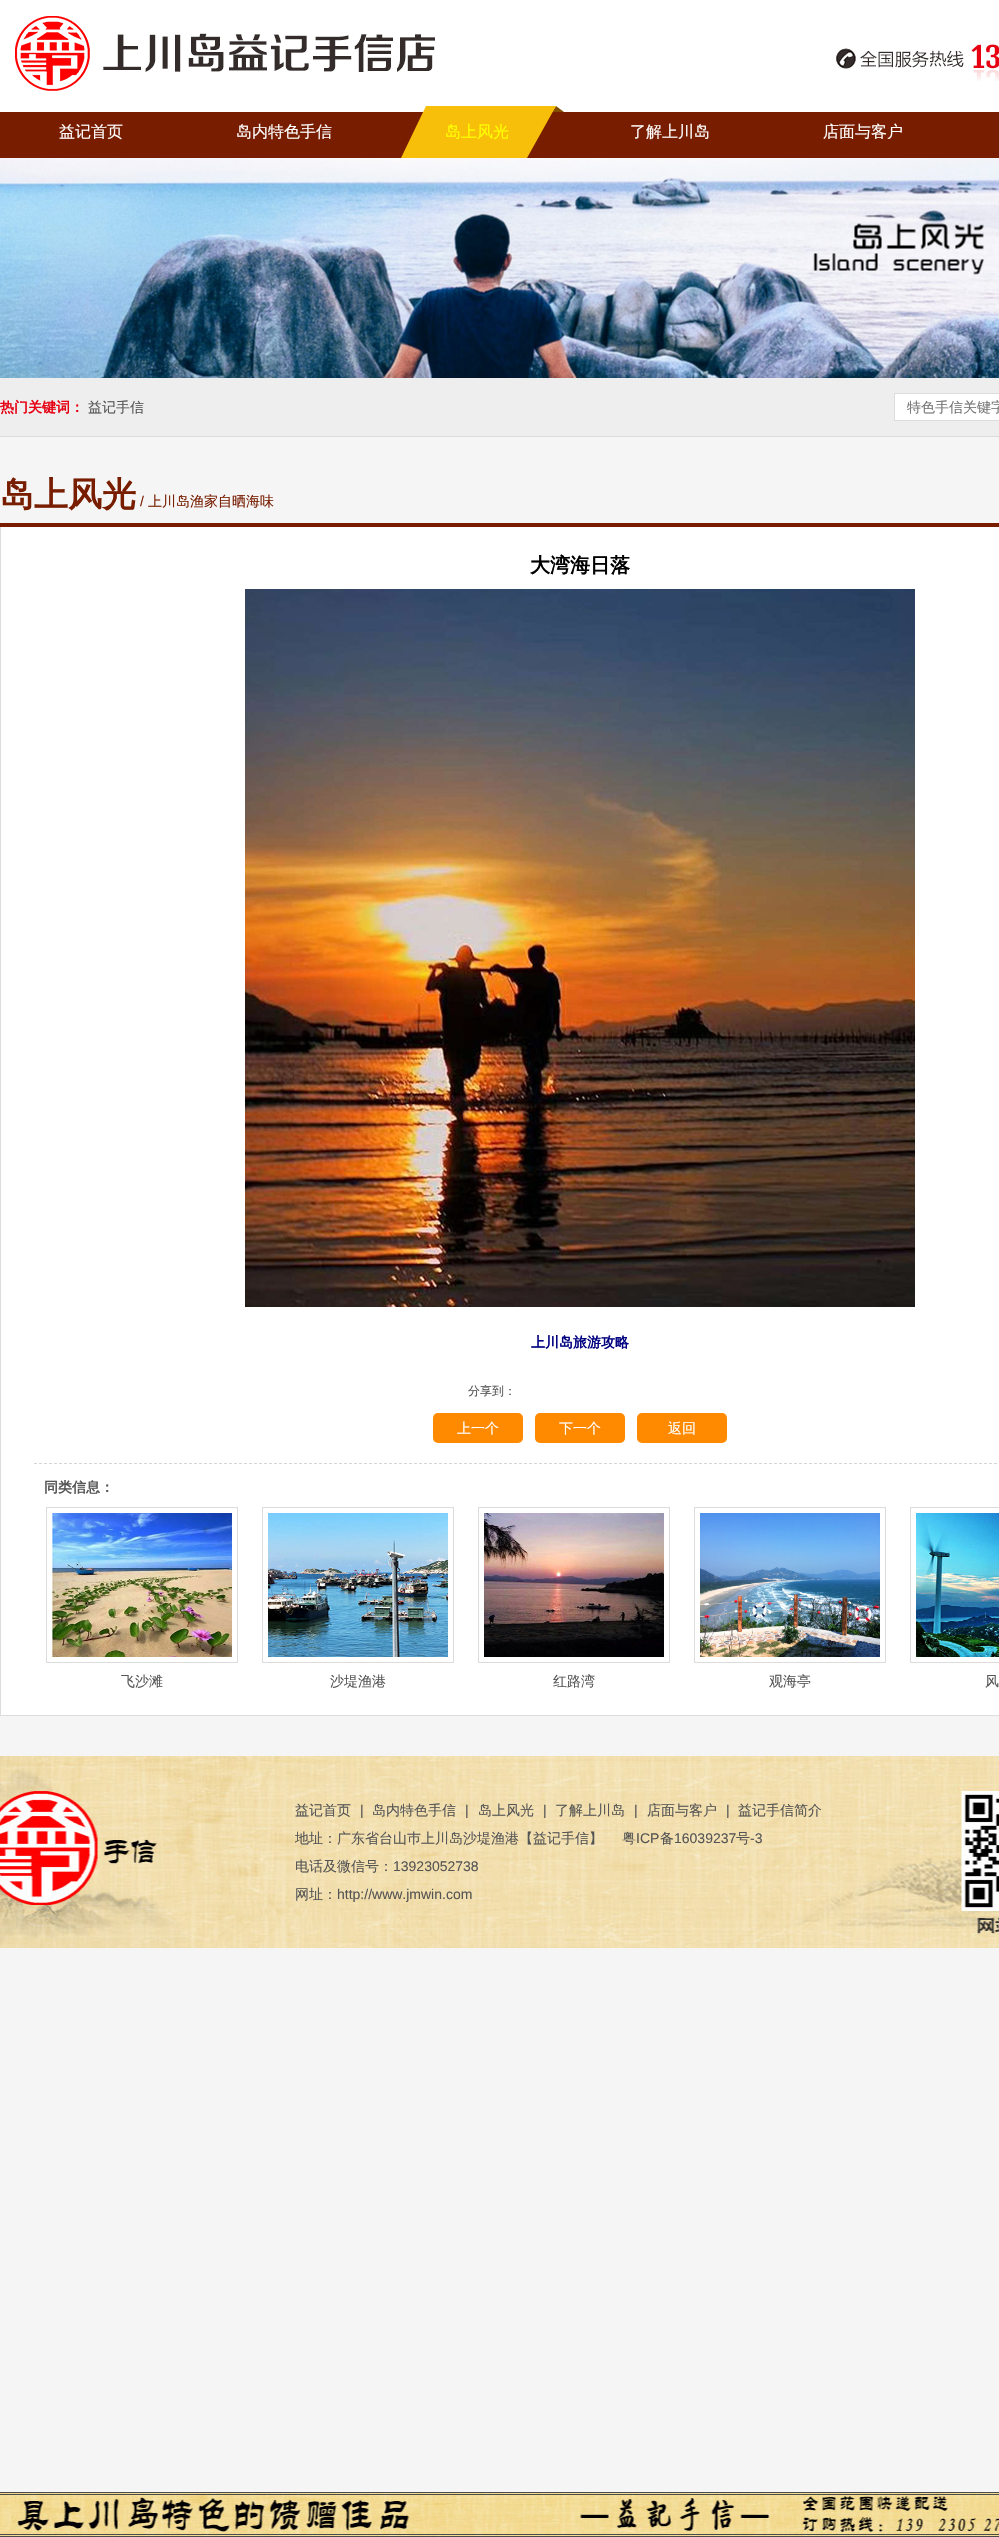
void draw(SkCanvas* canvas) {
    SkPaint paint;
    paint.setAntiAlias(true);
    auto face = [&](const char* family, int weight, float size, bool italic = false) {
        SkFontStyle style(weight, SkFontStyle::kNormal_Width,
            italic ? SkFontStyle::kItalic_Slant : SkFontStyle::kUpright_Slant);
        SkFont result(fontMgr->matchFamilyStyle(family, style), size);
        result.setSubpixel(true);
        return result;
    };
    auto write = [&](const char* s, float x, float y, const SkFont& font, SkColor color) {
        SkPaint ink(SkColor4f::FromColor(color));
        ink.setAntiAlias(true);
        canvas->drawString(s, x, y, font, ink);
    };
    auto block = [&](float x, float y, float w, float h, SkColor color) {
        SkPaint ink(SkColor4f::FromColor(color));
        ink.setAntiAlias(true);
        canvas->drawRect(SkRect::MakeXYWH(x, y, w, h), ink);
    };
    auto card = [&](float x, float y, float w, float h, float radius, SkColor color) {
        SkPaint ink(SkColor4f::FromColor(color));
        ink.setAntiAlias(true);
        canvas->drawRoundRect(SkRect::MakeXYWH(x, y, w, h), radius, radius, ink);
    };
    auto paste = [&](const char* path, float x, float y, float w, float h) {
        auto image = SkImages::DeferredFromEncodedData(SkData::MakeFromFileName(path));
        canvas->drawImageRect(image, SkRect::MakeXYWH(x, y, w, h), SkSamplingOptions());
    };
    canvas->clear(SkColorSetRGB(245, 245, 245));
    block(0, 0, 999, 106, SK_ColorWHITE);
    paste("pic1.png", 15, 16, 420, 75);
    paste("pic2.png", 836, 44, 163, 37);
    paste("pic3.png", 0, 106, 999, 52);
    auto kFont1 = face("WenQuanYi Zen Hei", 500, 16);
    write("益记首页", 59, 137, kFont1, SK_ColorWHITE);
    write("岛内特色手信", 236, 137, kFont1, SK_ColorWHITE);
    paste("pic4.png", 401, 106, 163, 52);
    write("岛上风光", 445, 137, kFont1, SkColorSetRGB(255, 255, 0));
    write("了解上川岛", 630, 137, kFont1, SK_ColorWHITE);
    write("店面与客户", 823, 137, kFont1, SK_ColorWHITE);
    paste("pic5.png", 0, 158, 999, 220);
    block(0, 378, 999, 58, SkColorSetRGB(238, 238, 238));
    block(0, 436, 999, 1, SkColorSetRGB(220, 220, 220));
    auto kFont2 = face("WenQuanYi Zen Hei", 700, 14);
    write("热门关键词：", 0, 412, kFont2, SkColorSetRGB(230, 0, 18));
    auto kFont3 = face("WenQuanYi Zen Hei", 500, 14);
    write("益记手信", 88, 412, kFont3, SkColorSetRGB(85, 85, 85));
    block(895, 394, 104, 26, SK_ColorWHITE);
    block(894, 393, 105, 1, SkColorSetRGB(220, 220, 220));
    block(894, 420, 105, 1, SkColorSetRGB(220, 220, 220));
    block(894, 393, 1, 28, SkColorSetRGB(220, 220, 220));
    write("特色手信关键字", 907, 412, kFont3, SkColorSetRGB(117, 117, 117));
    block(0, 523, 999, 4, SkColorSetRGB(120, 29, 0));
    auto kFont4 = face("WenQuanYi Zen Hei", 700, 34);
    write("岛上风光", 0, 506, kFont4, SkColorSetRGB(120, 29, 0));
    auto kFont5 = face("Liberation Sans", 400, 14);
    write("/", 140, 506, kFont5, SkColorSetRGB(120, 29, 0));
    write("上川岛渔家自晒海味", 148, 506, kFont3, SkColorSetRGB(120, 29, 0));
    block(1, 527, 998, 1188, SK_ColorWHITE);
    block(0, 1715, 999, 1, SkColorSetRGB(221, 221, 221));
    block(0, 527, 1, 1189, SkColorSetRGB(221, 221, 221));
    auto kFont6 = face("WenQuanYi Zen Hei", 700, 20);
    write("大湾海日落", 530, 572, kFont6, SK_ColorBLACK);
    paste("pic6.png", 245, 589, 670, 718);
    write("上川岛旅游攻略", 531, 1347, kFont2, SkColorSetRGB(0, 0, 128));
    auto kFont7 = face("WenQuanYi Zen Hei", 500, 12);
    write("分享到：", 468, 1395, kFont7, SkColorSetRGB(85, 85, 85));
    card(433, 1413, 90, 30, 5, SkColorSetRGB(255, 138, 0));
    write("上一个", 457, 1433, kFont3, SK_ColorWHITE);
    card(535, 1413, 90, 30, 5, SkColorSetRGB(255, 138, 0));
    write("下一个", 559, 1433, kFont3, SK_ColorWHITE);
    card(637, 1413, 90, 30, 5, SkColorSetRGB(255, 138, 0));
    write("返回", 668, 1433, kFont3, SK_ColorWHITE);
    paint.setStyle(SkPaint::kStroke_Style);
    paint.setStrokeWidth(1);
    paint.setColor(SkColorSetRGB(211, 213, 214));
    paint.setPathEffect(SkDashPathEffect::Make({{3, 2}}, 0));
    canvas->drawPath(SkPathBuilder().moveTo(34, 1463.5f).lineTo(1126, 1463.5f).detach(), paint);
    paint.setPathEffect(nullptr);
    write("同类信息：", 44, 1492, kFont2, SkColorSetRGB(85, 85, 85));
    paint.setColor(SkColorSetRGB(220, 220, 220));
    canvas->drawRect(SkRect::MakeXYWH(46.5f, 1507.5f, 191, 155), paint);
    paste("pic7.png", 52, 1513, 180, 144);
    write("飞沙滩", 121, 1686, kFont3, SkColorSetRGB(85, 85, 85));
    canvas->drawRect(SkRect::MakeXYWH(262.5f, 1507.5f, 191, 155), paint);
    paste("pic8.png", 268, 1513, 180, 144);
    write("沙堤渔港", 330, 1686, kFont3, SkColorSetRGB(85, 85, 85));
    canvas->drawRect(SkRect::MakeXYWH(478.5f, 1507.5f, 191, 155), paint);
    paste("pic9.png", 484, 1513, 180, 144);
    write("红路湾", 553, 1686, kFont3, SkColorSetRGB(85, 85, 85));
    canvas->drawRect(SkRect::MakeXYWH(694.5f, 1507.5f, 191, 155), paint);
    paste("pic10.png", 700, 1513, 180, 144);
    write("观海亭", 769, 1686, kFont3, SkColorSetRGB(85, 85, 85));
    canvas->drawRect(SkRect::MakeXYWH(910.5f, 1507.5f, 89, 155), paint);
    paste("pic11.png", 916, 1513, 83, 144);
    write("风", 985, 1686, kFont3, SkColorSetRGB(85, 85, 85));
    paste("pic12.png", 0, 1756, 999, 192);
    write("益记首页", 295, 1815, kFont3, SkColorSetRGB(85, 85, 85));
    write("|", 360, 1815, kFont5, SkColorSetRGB(85, 85, 85));
    write("岛内特色手信", 372, 1815, kFont3, SkColorSetRGB(85, 85, 85));
    write("|", 465, 1815, kFont5, SkColorSetRGB(85, 85, 85));
    write("岛上风光", 478, 1815, kFont3, SkColorSetRGB(85, 85, 85));
    write("|", 543, 1815, kFont5, SkColorSetRGB(85, 85, 85));
    write("了解上川岛", 555, 1815, kFont3, SkColorSetRGB(85, 85, 85));
    write("|", 634, 1815, kFont5, SkColorSetRGB(85, 85, 85));
    write("店面与客户", 647, 1815, kFont3, SkColorSetRGB(85, 85, 85));
    write("|", 726, 1815, kFont5, SkColorSetRGB(85, 85, 85));
    write("益记手信简介", 738, 1815, kFont3, SkColorSetRGB(85, 85, 85));
    write("地址：广东省台山巿上川岛沙堤渔港【益记手信】", 295, 1843, kFont3, SkColorSetRGB(85, 85, 85));
    write("粤", 622, 1843, kFont3, SkColorSetRGB(85, 85, 85));
    write("ICP", 636, 1843, kFont5, SkColorSetRGB(85, 85, 85));
    write("备", 660, 1843, kFont3, SkColorSetRGB(85, 85, 85));
    write("16039237", 674, 1843, kFont5, SkColorSetRGB(85, 85, 85));
    write("号", 736, 1843, kFont3, SkColorSetRGB(85, 85, 85));
    write("-3", 750, 1843, kFont5, SkColorSetRGB(85, 85, 85));
    write("电话及微信号：", 295, 1871, kFont3, SkColorSetRGB(85, 85, 85));
    write("13923052738", 393, 1871, kFont5, SkColorSetRGB(85, 85, 85));
    write("网址：", 295, 1899, kFont3, SkColorSetRGB(85, 85, 85));
    write("http://www.jmwin.com", 337, 1899, kFont5, SkColorSetRGB(85, 85, 85));
    paste("pic13.png", 0, 2492, 999, 45);
}
